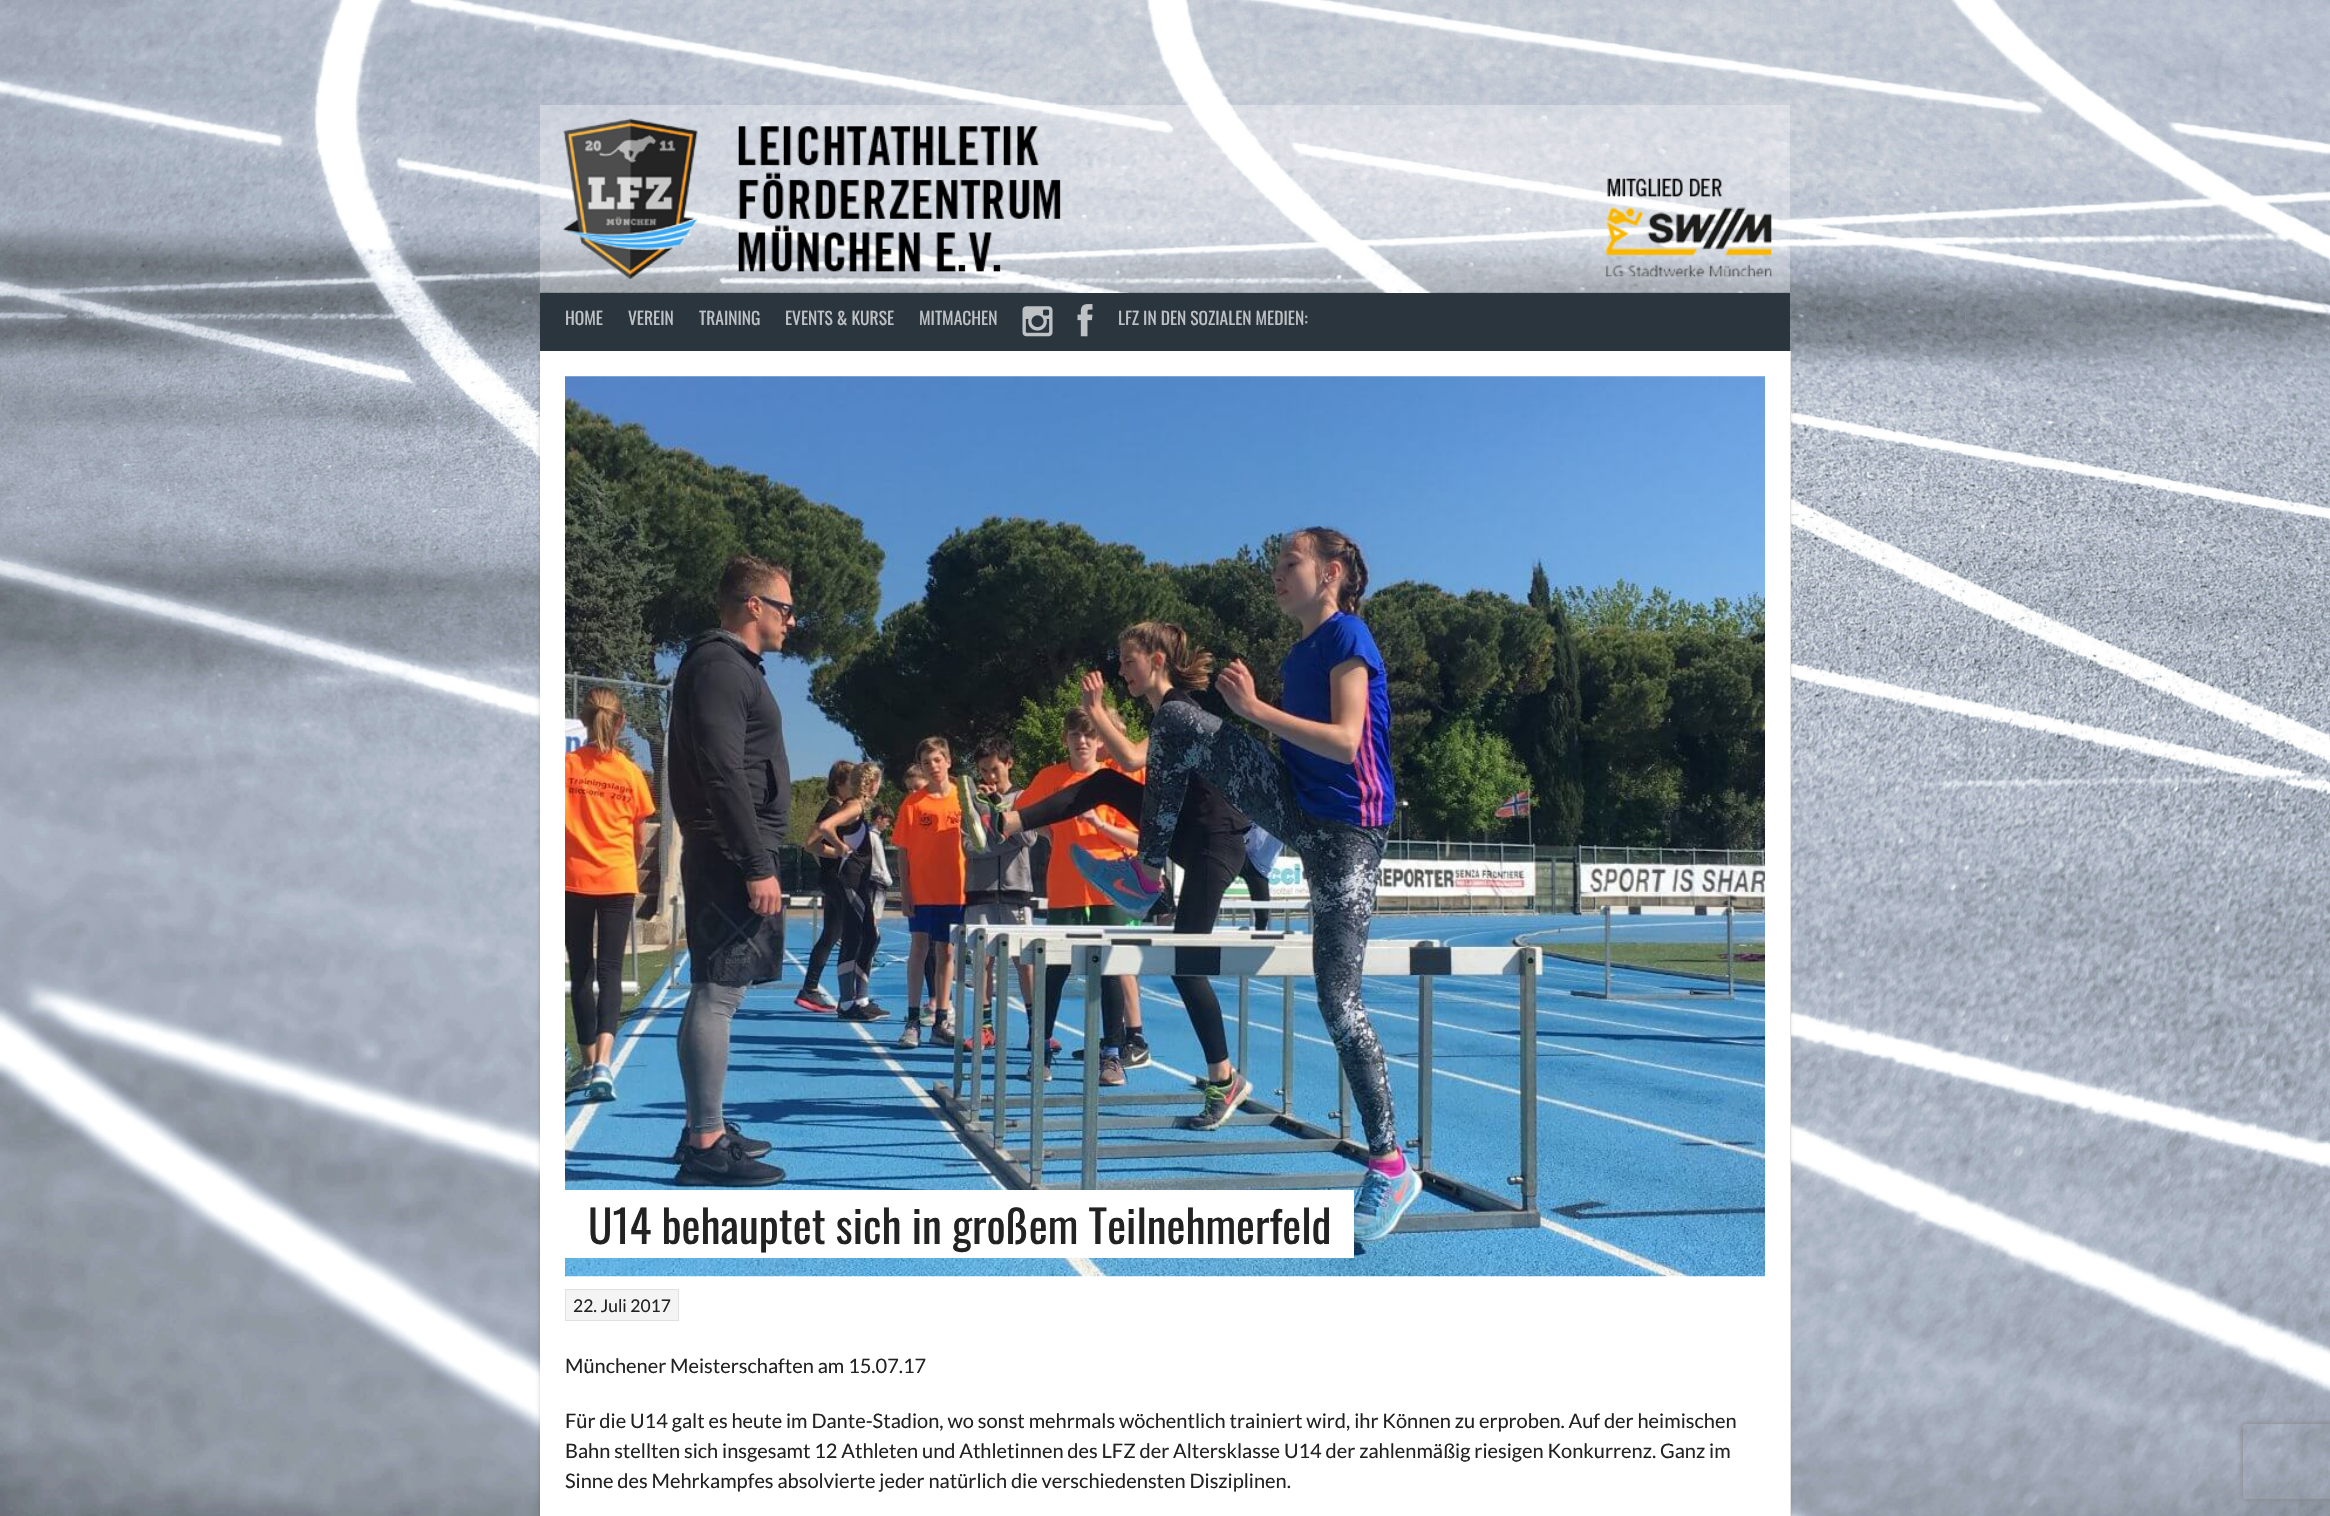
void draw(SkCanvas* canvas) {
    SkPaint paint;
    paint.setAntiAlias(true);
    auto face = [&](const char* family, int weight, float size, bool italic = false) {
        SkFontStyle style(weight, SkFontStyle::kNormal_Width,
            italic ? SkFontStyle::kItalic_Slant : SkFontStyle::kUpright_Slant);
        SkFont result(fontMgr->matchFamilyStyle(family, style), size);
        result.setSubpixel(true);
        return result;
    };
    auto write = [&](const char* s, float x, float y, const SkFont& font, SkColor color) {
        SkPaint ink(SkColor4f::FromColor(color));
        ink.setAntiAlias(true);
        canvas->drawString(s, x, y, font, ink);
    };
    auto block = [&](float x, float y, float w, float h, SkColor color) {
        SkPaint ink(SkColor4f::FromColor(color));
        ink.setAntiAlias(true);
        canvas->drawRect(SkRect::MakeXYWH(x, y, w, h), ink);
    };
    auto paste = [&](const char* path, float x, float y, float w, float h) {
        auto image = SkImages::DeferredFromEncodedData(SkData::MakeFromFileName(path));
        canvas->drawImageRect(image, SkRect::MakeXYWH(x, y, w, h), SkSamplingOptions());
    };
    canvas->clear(SK_ColorWHITE);
    paste("pic1.png", 0, 0, 2330, 1516);
    paste("pic2.png", 540, 105, 1250, 188);
    paint.setColor(SkColorSetARGB(51, 0, 0, 0));
    paint.setMaskFilter(SkMaskFilter::MakeBlur(kNormal_SkBlurStyle, 2));
    canvas->drawRect(SkRect::MakeXYWH(540, 355, 1250, 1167), paint);
    paint.setMaskFilter(nullptr);
    block(540, 293, 1250, 58, SkColorSetRGB(43, 53, 62));
    auto kFont1 = face("Oswald", 400, 17.5f);
    write("HOME", 565, 325, kFont1, SkColorSetRGB(191, 194, 197));
    write("VEREIN", 628, 325, kFont1, SkColorSetRGB(191, 194, 197));
    write("TRAINING", 699, 325, kFont1, SkColorSetRGB(191, 194, 197));
    write("EVENTS & KURSE", 785, 325, kFont1, SkColorSetRGB(191, 194, 197));
    write("MITMACHEN", 919, 325, kFont1, SkColorSetRGB(191, 194, 197));
    paste("pic3.png", 1022, 306, 31, 31);
    paste("pic4.png", 1077, 304, 16, 33);
    write("LFZ IN DEN SOZIALEN MEDIEN:", 1118, 325, kFont1, SkColorSetRGB(191, 194, 197));
    block(540, 351, 1250, 1165, SK_ColorWHITE);
    paint.setColor(SkColorSetRGB(224, 224, 224));
    canvas->drawPath(SkPathBuilder().moveTo(541, 351).lineTo(1790, 351).lineTo(1790, 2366).lineTo(1791, 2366).lineTo(1791, 351).close().detach(), paint);
    paste("pic5.png", 565, 376, 1200, 901);
    block(565, 1190, 789, 68, SK_ColorWHITE);
    auto kFont2 = face("Oswald", 400, 45);
    write("U14 behauptet sich in großem Teilnehmerfeld", 588, 1244, kFont2, SkColorSetRGB(34, 34, 34));
    paint.setColor(SkColorSetRGB(244, 244, 244));
    canvas->drawRect(SkRect::MakeXYWH(565.5f, 1289.5f, 113, 31), paint);
    paint.setStyle(SkPaint::kStroke_Style);
    paint.setStrokeWidth(1);
    paint.setColor(SkColorSetRGB(224, 224, 224));
    canvas->drawRect(SkRect::MakeXYWH(565.5f, 1289.5f, 113, 31), paint);
    auto kFont3 = face("Lato", 400, 17.5f);
    write("22. Juli 2017", 573, 1312, kFont3, SkColorSetRGB(34, 34, 34));
    auto kFont4 = face("Lato", 400, 20);
    write("Münchener Meisterschaften am 15.07.17", 565, 1373, kFont4, SkColorSetRGB(34, 34, 34));
    write("Für die U14 galt es heute im Dante-Stadion, wo sonst mehrmals wöchentlich trainiert wird, ihr Können zu erproben. Auf der heimischen", 565, 1428, kFont4, SkColorSetRGB(34, 34, 34));
    write("Bahn stellten sich insgesamt 12 Athleten und Athletinnen des LFZ der Altersklasse U14 der zahlenmäßig riesigen Konkurrenz. Ganz im", 565, 1458, kFont4, SkColorSetRGB(34, 34, 34));
    write("Sinne des Mehrkampfes absolvierte jeder natürlich die verschiedensten Disziplinen.", 565, 1488, kFont4, SkColorSetRGB(34, 34, 34));
    canvas->save();
    canvas->clipPath(SkPathBuilder(SkPathFillType::kEvenOdd).moveTo(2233, 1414).lineTo(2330, 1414).lineTo(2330, 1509).lineTo(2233, 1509).close().moveTo(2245.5f, 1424).lineTo(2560.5f, 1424).cubicTo(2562, 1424, 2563, 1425, 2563, 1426.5f).lineTo(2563, 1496.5f).cubicTo(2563, 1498, 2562, 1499, 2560.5f, 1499).lineTo(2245.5f, 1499).cubicTo(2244, 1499, 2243, 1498, 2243, 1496.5f).lineTo(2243, 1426.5f).cubicTo(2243, 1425, 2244, 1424, 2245.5f, 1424).close().detach(), true);
    paint.setStyle(SkPaint::kFill_Style);
    paint.setColor(SkColorSetRGB(128, 128, 128));
    paint.setMaskFilter(SkMaskFilter::MakeBlur(kNormal_SkBlurStyle, 3));
    canvas->drawRoundRect(SkRect::MakeXYWH(2243, 1424, 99, 75), 2.5f, 2.5f, paint);
    paint.setMaskFilter(nullptr);
    canvas->restore();
}
